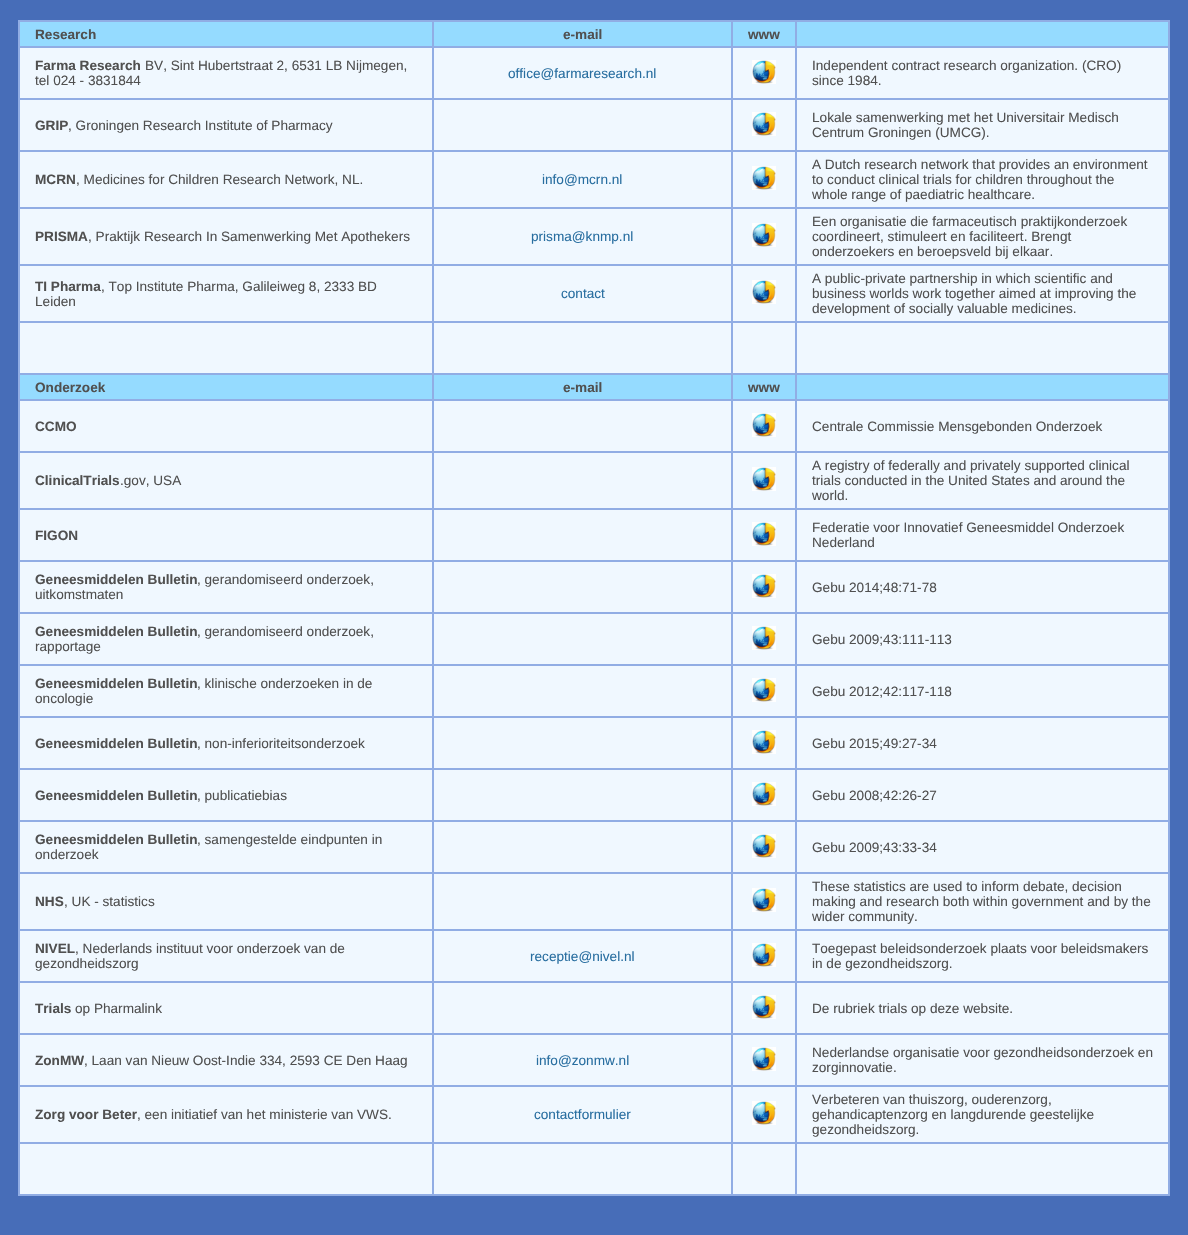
void draw(SkCanvas* canvas) {
    SkPaint paint;
    paint.setAntiAlias(true);
    auto face = [&](const char* family, int weight, float size, bool italic = false) {
        SkFontStyle style(weight, SkFontStyle::kNormal_Width,
            italic ? SkFontStyle::kItalic_Slant : SkFontStyle::kUpright_Slant);
        SkFont result(fontMgr->matchFamilyStyle(family, style), size);
        result.setSubpixel(true);
        return result;
    };
    auto write = [&](const char* s, float x, float y, const SkFont& font, SkColor color) {
        SkPaint ink(SkColor4f::FromColor(color));
        ink.setAntiAlias(true);
        canvas->drawString(s, x, y, font, ink);
    };
    auto block = [&](float x, float y, float w, float h, SkColor color) {
        SkPaint ink(SkColor4f::FromColor(color));
        ink.setAntiAlias(true);
        canvas->drawRect(SkRect::MakeXYWH(x, y, w, h), ink);
    };
    auto paste = [&](const char* path, float x, float y, float w, float h) {
        auto image = SkImages::DeferredFromEncodedData(SkData::MakeFromFileName(path));
        canvas->drawImageRect(image, SkRect::MakeXYWH(x, y, w, h), SkSamplingOptions());
    };
    canvas->clear(SkColorSetRGB(71, 109, 184));
    block(20, 22, 412, 24, SkColorSetRGB(149, 219, 255));
    block(795, 20, 375, 2, SkColorSetRGB(145, 173, 228));
    block(795, 46, 375, 2, SkColorSetRGB(145, 173, 228));
    block(795, 98, 375, 2, SkColorSetRGB(145, 173, 228));
    block(795, 150, 375, 2, SkColorSetRGB(145, 173, 228));
    block(795, 207, 375, 2, SkColorSetRGB(145, 173, 228));
    block(795, 264, 375, 2, SkColorSetRGB(145, 173, 228));
    block(795, 321, 375, 2, SkColorSetRGB(145, 173, 228));
    block(795, 373, 375, 2, SkColorSetRGB(145, 173, 228));
    block(795, 399, 375, 2, SkColorSetRGB(145, 173, 228));
    block(795, 451, 375, 2, SkColorSetRGB(145, 173, 228));
    block(795, 508, 375, 2, SkColorSetRGB(145, 173, 228));
    block(795, 560, 375, 2, SkColorSetRGB(145, 173, 228));
    block(795, 612, 375, 2, SkColorSetRGB(145, 173, 228));
    block(795, 664, 375, 2, SkColorSetRGB(145, 173, 228));
    block(795, 716, 375, 2, SkColorSetRGB(145, 173, 228));
    block(795, 768, 375, 2, SkColorSetRGB(145, 173, 228));
    block(795, 820, 375, 2, SkColorSetRGB(145, 173, 228));
    block(795, 872, 375, 2, SkColorSetRGB(145, 173, 228));
    block(795, 929, 375, 2, SkColorSetRGB(145, 173, 228));
    block(795, 981, 375, 2, SkColorSetRGB(145, 173, 228));
    block(795, 1033, 375, 2, SkColorSetRGB(145, 173, 228));
    block(795, 1085, 375, 2, SkColorSetRGB(145, 173, 228));
    block(795, 1142, 375, 2, SkColorSetRGB(145, 173, 228));
    block(1168, 1142, 2, 54, SkColorSetRGB(145, 173, 228));
    block(795, 1194, 375, 2, SkColorSetRGB(145, 173, 228));
    block(795, 1142, 2, 54, SkColorSetRGB(145, 173, 228));
    block(731, 1142, 66, 2, SkColorSetRGB(145, 173, 228));
    block(795, 1085, 2, 59, SkColorSetRGB(145, 173, 228));
    block(731, 1085, 66, 2, SkColorSetRGB(145, 173, 228));
    block(795, 1033, 2, 54, SkColorSetRGB(145, 173, 228));
    block(731, 1033, 66, 2, SkColorSetRGB(145, 173, 228));
    block(795, 981, 2, 54, SkColorSetRGB(145, 173, 228));
    block(731, 981, 66, 2, SkColorSetRGB(145, 173, 228));
    block(795, 929, 2, 54, SkColorSetRGB(145, 173, 228));
    block(731, 929, 66, 2, SkColorSetRGB(145, 173, 228));
    block(795, 872, 2, 59, SkColorSetRGB(145, 173, 228));
    block(731, 872, 66, 2, SkColorSetRGB(145, 173, 228));
    block(795, 820, 2, 54, SkColorSetRGB(145, 173, 228));
    block(731, 820, 66, 2, SkColorSetRGB(145, 173, 228));
    block(795, 768, 2, 54, SkColorSetRGB(145, 173, 228));
    block(731, 768, 66, 2, SkColorSetRGB(145, 173, 228));
    block(795, 716, 2, 54, SkColorSetRGB(145, 173, 228));
    block(731, 716, 66, 2, SkColorSetRGB(145, 173, 228));
    block(795, 664, 2, 54, SkColorSetRGB(145, 173, 228));
    block(731, 664, 66, 2, SkColorSetRGB(145, 173, 228));
    block(795, 612, 2, 54, SkColorSetRGB(145, 173, 228));
    block(731, 612, 66, 2, SkColorSetRGB(145, 173, 228));
    block(795, 560, 2, 54, SkColorSetRGB(145, 173, 228));
    block(731, 560, 66, 2, SkColorSetRGB(145, 173, 228));
    block(795, 508, 2, 54, SkColorSetRGB(145, 173, 228));
    block(731, 508, 66, 2, SkColorSetRGB(145, 173, 228));
    block(795, 451, 2, 59, SkColorSetRGB(145, 173, 228));
    block(731, 451, 66, 2, SkColorSetRGB(145, 173, 228));
    block(795, 399, 2, 54, SkColorSetRGB(145, 173, 228));
    block(731, 399, 66, 2, SkColorSetRGB(145, 173, 228));
    block(795, 373, 2, 28, SkColorSetRGB(145, 173, 228));
    block(731, 373, 66, 2, SkColorSetRGB(145, 173, 228));
    block(795, 321, 2, 54, SkColorSetRGB(145, 173, 228));
    block(731, 321, 66, 2, SkColorSetRGB(145, 173, 228));
    block(795, 264, 2, 59, SkColorSetRGB(145, 173, 228));
    block(731, 264, 66, 2, SkColorSetRGB(145, 173, 228));
    block(795, 207, 2, 59, SkColorSetRGB(145, 173, 228));
    block(731, 207, 66, 2, SkColorSetRGB(145, 173, 228));
    block(795, 150, 2, 59, SkColorSetRGB(145, 173, 228));
    block(731, 150, 66, 2, SkColorSetRGB(145, 173, 228));
    block(795, 98, 2, 54, SkColorSetRGB(145, 173, 228));
    block(731, 98, 66, 2, SkColorSetRGB(145, 173, 228));
    block(795, 46, 2, 54, SkColorSetRGB(145, 173, 228));
    block(731, 46, 66, 2, SkColorSetRGB(145, 173, 228));
    block(795, 20, 2, 28, SkColorSetRGB(145, 173, 228));
    block(731, 20, 66, 2, SkColorSetRGB(145, 173, 228));
    block(731, 1194, 66, 2, SkColorSetRGB(145, 173, 228));
    block(731, 1142, 2, 54, SkColorSetRGB(145, 173, 228));
    block(432, 1142, 301, 2, SkColorSetRGB(145, 173, 228));
    block(731, 1085, 2, 59, SkColorSetRGB(145, 173, 228));
    block(432, 1085, 301, 2, SkColorSetRGB(145, 173, 228));
    block(731, 1033, 2, 54, SkColorSetRGB(145, 173, 228));
    block(432, 1033, 301, 2, SkColorSetRGB(145, 173, 228));
    block(731, 981, 2, 54, SkColorSetRGB(145, 173, 228));
    block(432, 981, 301, 2, SkColorSetRGB(145, 173, 228));
    block(731, 929, 2, 54, SkColorSetRGB(145, 173, 228));
    block(432, 929, 301, 2, SkColorSetRGB(145, 173, 228));
    block(731, 872, 2, 59, SkColorSetRGB(145, 173, 228));
    block(432, 872, 301, 2, SkColorSetRGB(145, 173, 228));
    block(731, 820, 2, 54, SkColorSetRGB(145, 173, 228));
    block(432, 820, 301, 2, SkColorSetRGB(145, 173, 228));
    block(731, 768, 2, 54, SkColorSetRGB(145, 173, 228));
    block(432, 768, 301, 2, SkColorSetRGB(145, 173, 228));
    block(731, 716, 2, 54, SkColorSetRGB(145, 173, 228));
    block(432, 716, 301, 2, SkColorSetRGB(145, 173, 228));
    block(731, 664, 2, 54, SkColorSetRGB(145, 173, 228));
    block(432, 664, 301, 2, SkColorSetRGB(145, 173, 228));
    block(731, 612, 2, 54, SkColorSetRGB(145, 173, 228));
    block(432, 612, 301, 2, SkColorSetRGB(145, 173, 228));
    block(731, 560, 2, 54, SkColorSetRGB(145, 173, 228));
    block(432, 560, 301, 2, SkColorSetRGB(145, 173, 228));
    block(731, 508, 2, 54, SkColorSetRGB(145, 173, 228));
    block(432, 508, 301, 2, SkColorSetRGB(145, 173, 228));
    block(731, 451, 2, 59, SkColorSetRGB(145, 173, 228));
    block(432, 451, 301, 2, SkColorSetRGB(145, 173, 228));
    block(731, 399, 2, 54, SkColorSetRGB(145, 173, 228));
    block(432, 399, 301, 2, SkColorSetRGB(145, 173, 228));
    block(731, 373, 2, 28, SkColorSetRGB(145, 173, 228));
    block(432, 373, 301, 2, SkColorSetRGB(145, 173, 228));
    block(731, 321, 2, 54, SkColorSetRGB(145, 173, 228));
    block(432, 321, 301, 2, SkColorSetRGB(145, 173, 228));
    block(731, 264, 2, 59, SkColorSetRGB(145, 173, 228));
    block(432, 264, 301, 2, SkColorSetRGB(145, 173, 228));
    block(731, 207, 2, 59, SkColorSetRGB(145, 173, 228));
    block(432, 207, 301, 2, SkColorSetRGB(145, 173, 228));
    block(731, 150, 2, 59, SkColorSetRGB(145, 173, 228));
    block(432, 150, 301, 2, SkColorSetRGB(145, 173, 228));
    block(731, 98, 2, 54, SkColorSetRGB(145, 173, 228));
    block(432, 98, 301, 2, SkColorSetRGB(145, 173, 228));
    block(731, 46, 2, 54, SkColorSetRGB(145, 173, 228));
    block(432, 46, 301, 2, SkColorSetRGB(145, 173, 228));
    block(731, 20, 2, 28, SkColorSetRGB(145, 173, 228));
    block(432, 20, 301, 2, SkColorSetRGB(145, 173, 228));
    block(432, 1194, 301, 2, SkColorSetRGB(145, 173, 228));
    block(432, 1142, 2, 54, SkColorSetRGB(145, 173, 228));
    block(18, 1142, 416, 2, SkColorSetRGB(145, 173, 228));
    block(432, 1085, 2, 59, SkColorSetRGB(145, 173, 228));
    block(18, 1085, 416, 2, SkColorSetRGB(145, 173, 228));
    block(432, 1033, 2, 54, SkColorSetRGB(145, 173, 228));
    block(18, 1033, 416, 2, SkColorSetRGB(145, 173, 228));
    block(432, 981, 2, 54, SkColorSetRGB(145, 173, 228));
    block(18, 981, 416, 2, SkColorSetRGB(145, 173, 228));
    block(432, 929, 2, 54, SkColorSetRGB(145, 173, 228));
    block(18, 929, 416, 2, SkColorSetRGB(145, 173, 228));
    block(432, 872, 2, 59, SkColorSetRGB(145, 173, 228));
    block(18, 872, 416, 2, SkColorSetRGB(145, 173, 228));
    block(432, 820, 2, 54, SkColorSetRGB(145, 173, 228));
    block(18, 820, 416, 2, SkColorSetRGB(145, 173, 228));
    block(432, 768, 2, 54, SkColorSetRGB(145, 173, 228));
    block(18, 768, 416, 2, SkColorSetRGB(145, 173, 228));
    block(432, 716, 2, 54, SkColorSetRGB(145, 173, 228));
    block(18, 716, 416, 2, SkColorSetRGB(145, 173, 228));
    block(432, 664, 2, 54, SkColorSetRGB(145, 173, 228));
    block(18, 664, 416, 2, SkColorSetRGB(145, 173, 228));
    block(432, 612, 2, 54, SkColorSetRGB(145, 173, 228));
    block(18, 612, 416, 2, SkColorSetRGB(145, 173, 228));
    block(432, 560, 2, 54, SkColorSetRGB(145, 173, 228));
    block(18, 560, 416, 2, SkColorSetRGB(145, 173, 228));
    block(432, 508, 2, 54, SkColorSetRGB(145, 173, 228));
    block(18, 508, 416, 2, SkColorSetRGB(145, 173, 228));
    block(432, 451, 2, 59, SkColorSetRGB(145, 173, 228));
    block(18, 451, 416, 2, SkColorSetRGB(145, 173, 228));
    block(432, 399, 2, 54, SkColorSetRGB(145, 173, 228));
    block(18, 399, 416, 2, SkColorSetRGB(145, 173, 228));
    block(432, 373, 2, 28, SkColorSetRGB(145, 173, 228));
    block(18, 373, 416, 2, SkColorSetRGB(145, 173, 228));
    block(432, 321, 2, 54, SkColorSetRGB(145, 173, 228));
    block(18, 321, 416, 2, SkColorSetRGB(145, 173, 228));
    block(432, 264, 2, 59, SkColorSetRGB(145, 173, 228));
    block(18, 264, 416, 2, SkColorSetRGB(145, 173, 228));
    block(432, 207, 2, 59, SkColorSetRGB(145, 173, 228));
    block(18, 207, 416, 2, SkColorSetRGB(145, 173, 228));
    block(432, 150, 2, 59, SkColorSetRGB(145, 173, 228));
    block(18, 150, 416, 2, SkColorSetRGB(145, 173, 228));
    block(432, 98, 2, 54, SkColorSetRGB(145, 173, 228));
    block(18, 98, 416, 2, SkColorSetRGB(145, 173, 228));
    block(432, 46, 2, 54, SkColorSetRGB(145, 173, 228));
    block(18, 46, 416, 2, SkColorSetRGB(145, 173, 228));
    block(432, 20, 2, 28, SkColorSetRGB(145, 173, 228));
    block(18, 20, 416, 2, SkColorSetRGB(145, 173, 228));
    block(18, 1194, 416, 2, SkColorSetRGB(145, 173, 228));
    block(18, 1142, 2, 54, SkColorSetRGB(145, 173, 228));
    block(18, 1085, 2, 59, SkColorSetRGB(145, 173, 228));
    block(18, 1033, 2, 54, SkColorSetRGB(145, 173, 228));
    block(18, 981, 2, 54, SkColorSetRGB(145, 173, 228));
    block(18, 929, 2, 54, SkColorSetRGB(145, 173, 228));
    block(18, 872, 2, 59, SkColorSetRGB(145, 173, 228));
    block(18, 820, 2, 54, SkColorSetRGB(145, 173, 228));
    block(18, 768, 2, 54, SkColorSetRGB(145, 173, 228));
    block(18, 716, 2, 54, SkColorSetRGB(145, 173, 228));
    block(18, 664, 2, 54, SkColorSetRGB(145, 173, 228));
    block(18, 612, 2, 54, SkColorSetRGB(145, 173, 228));
    block(18, 560, 2, 54, SkColorSetRGB(145, 173, 228));
    block(18, 508, 2, 54, SkColorSetRGB(145, 173, 228));
    block(18, 451, 2, 59, SkColorSetRGB(145, 173, 228));
    block(18, 399, 2, 54, SkColorSetRGB(145, 173, 228));
    block(18, 373, 2, 28, SkColorSetRGB(145, 173, 228));
    block(18, 321, 2, 54, SkColorSetRGB(145, 173, 228));
    block(18, 264, 2, 59, SkColorSetRGB(145, 173, 228));
    block(18, 207, 2, 59, SkColorSetRGB(145, 173, 228));
    block(18, 150, 2, 59, SkColorSetRGB(145, 173, 228));
    block(18, 98, 2, 54, SkColorSetRGB(145, 173, 228));
    block(18, 46, 2, 54, SkColorSetRGB(145, 173, 228));
    block(18, 20, 2, 28, SkColorSetRGB(145, 173, 228));
    auto kFont1 = face("Liberation Sans", 700, 13.6f);
    write("Research", 35, 39, kFont1, SkColorSetRGB(80, 80, 80));
    block(434, 22, 297, 24, SkColorSetRGB(149, 219, 255));
    write("e-mail", 563, 39, kFont1, SkColorSetRGB(80, 80, 80));
    block(733, 22, 62, 24, SkColorSetRGB(149, 219, 255));
    write("www", 748, 39, kFont1, SkColorSetRGB(80, 80, 80));
    block(797, 22, 371, 24, SkColorSetRGB(149, 219, 255));
    block(1168, 1085, 2, 59, SkColorSetRGB(145, 173, 228));
    block(1168, 1033, 2, 54, SkColorSetRGB(145, 173, 228));
    block(1168, 981, 2, 54, SkColorSetRGB(145, 173, 228));
    block(1168, 929, 2, 54, SkColorSetRGB(145, 173, 228));
    block(1168, 872, 2, 59, SkColorSetRGB(145, 173, 228));
    block(1168, 820, 2, 54, SkColorSetRGB(145, 173, 228));
    block(1168, 768, 2, 54, SkColorSetRGB(145, 173, 228));
    block(1168, 716, 2, 54, SkColorSetRGB(145, 173, 228));
    block(1168, 664, 2, 54, SkColorSetRGB(145, 173, 228));
    block(1168, 612, 2, 54, SkColorSetRGB(145, 173, 228));
    block(1168, 560, 2, 54, SkColorSetRGB(145, 173, 228));
    block(1168, 508, 2, 54, SkColorSetRGB(145, 173, 228));
    block(1168, 451, 2, 59, SkColorSetRGB(145, 173, 228));
    block(1168, 399, 2, 54, SkColorSetRGB(145, 173, 228));
    block(1168, 373, 2, 28, SkColorSetRGB(145, 173, 228));
    block(1168, 321, 2, 54, SkColorSetRGB(145, 173, 228));
    block(1168, 264, 2, 59, SkColorSetRGB(145, 173, 228));
    block(1168, 207, 2, 59, SkColorSetRGB(145, 173, 228));
    block(1168, 150, 2, 59, SkColorSetRGB(145, 173, 228));
    block(1168, 98, 2, 54, SkColorSetRGB(145, 173, 228));
    block(1168, 46, 2, 54, SkColorSetRGB(145, 173, 228));
    block(1168, 20, 2, 28, SkColorSetRGB(145, 173, 228));
    block(20, 48, 412, 50, SkColorSetRGB(240, 248, 255));
    write("Farma Research", 35, 70, kFont1, SkColorSetRGB(80, 80, 80));
    auto kFont2 = face("Liberation Sans", 400, 13.6f);
    write("BV, Sint Hubertstraat 2, 6531 LB Nijmegen,", 145, 70, kFont2, SkColorSetRGB(80, 80, 80));
    write("tel 024 - 3831844", 35, 85, kFont2, SkColorSetRGB(80, 80, 80));
    block(434, 48, 297, 50, SkColorSetRGB(240, 248, 255));
    write("office@farmaresearch.nl", 508, 78, kFont2, SkColorSetRGB(40, 110, 160));
    block(733, 48, 62, 50, SkColorSetRGB(240, 248, 255));
    paste("pic1.png", 752, 60, 24, 24);
    block(797, 48, 371, 50, SkColorSetRGB(240, 248, 255));
    write("Independent contract research organization. (CRO)", 812, 70, kFont2, SkColorSetRGB(80, 80, 80));
    write("since 1984.", 812, 85, kFont2, SkColorSetRGB(80, 80, 80));
    block(20, 100, 412, 50, SkColorSetRGB(240, 248, 255));
    write("GRIP", 35, 130, kFont1, SkColorSetRGB(80, 80, 80));
    write(", Groningen Research Institute of Pharmacy", 68, 130, kFont2, SkColorSetRGB(80, 80, 80));
    block(434, 100, 297, 50, SkColorSetRGB(240, 248, 255));
    block(733, 100, 62, 50, SkColorSetRGB(240, 248, 255));
    paste("pic1.png", 752, 112, 24, 24);
    block(797, 100, 371, 50, SkColorSetRGB(240, 248, 255));
    write("Lokale samenwerking met het Universitair Medisch", 812, 122, kFont2, SkColorSetRGB(80, 80, 80));
    write("Centrum Groningen (UMCG).", 812, 137, kFont2, SkColorSetRGB(80, 80, 80));
    block(20, 152, 412, 55, SkColorSetRGB(240, 248, 255));
    write("MCRN", 35, 184, kFont1, SkColorSetRGB(80, 80, 80));
    write(", Medicines for Children Research Network, NL.", 76, 184, kFont2, SkColorSetRGB(80, 80, 80));
    block(434, 152, 297, 55, SkColorSetRGB(240, 248, 255));
    write("info@mcrn.nl", 542, 184, kFont2, SkColorSetRGB(40, 110, 160));
    block(733, 152, 62, 55, SkColorSetRGB(240, 248, 255));
    paste("pic1.png", 752, 166, 24, 24);
    block(797, 152, 371, 55, SkColorSetRGB(240, 248, 255));
    write("A Dutch research network that provides an environment", 812, 169, kFont2, SkColorSetRGB(80, 80, 80));
    write("to conduct clinical trials for children throughout the", 812, 184, kFont2, SkColorSetRGB(80, 80, 80));
    write("whole range of paediatric healthcare.", 812, 199, kFont2, SkColorSetRGB(80, 80, 80));
    block(20, 209, 412, 55, SkColorSetRGB(240, 248, 255));
    write("PRISMA", 35, 241, kFont1, SkColorSetRGB(80, 80, 80));
    write(", Praktijk Research In Samenwerking Met Apothekers", 88, 241, kFont2, SkColorSetRGB(80, 80, 80));
    block(434, 209, 297, 55, SkColorSetRGB(240, 248, 255));
    write("prisma@knmp.nl", 531, 241, kFont2, SkColorSetRGB(40, 110, 160));
    block(733, 209, 62, 55, SkColorSetRGB(240, 248, 255));
    paste("pic1.png", 752, 223, 24, 24);
    block(797, 209, 371, 55, SkColorSetRGB(240, 248, 255));
    write("Een organisatie die farmaceutisch praktijkonderzoek", 812, 226, kFont2, SkColorSetRGB(80, 80, 80));
    write("coordineert, stimuleert en faciliteert. Brengt", 812, 241, kFont2, SkColorSetRGB(80, 80, 80));
    write("onderzoekers en beroepsveld bij elkaar.", 812, 256, kFont2, SkColorSetRGB(80, 80, 80));
    block(20, 266, 412, 55, SkColorSetRGB(240, 248, 255));
    write("TI Pharma", 35, 291, kFont1, SkColorSetRGB(80, 80, 80));
    write(", Top Institute Pharma, Galileiweg 8, 2333 BD", 101, 291, kFont2, SkColorSetRGB(80, 80, 80));
    write("Leiden", 35, 306, kFont2, SkColorSetRGB(80, 80, 80));
    block(434, 266, 297, 55, SkColorSetRGB(240, 248, 255));
    write("contact", 561, 298, kFont2, SkColorSetRGB(40, 110, 160));
    block(733, 266, 62, 55, SkColorSetRGB(240, 248, 255));
    paste("pic1.png", 752, 280, 24, 24);
    block(797, 266, 371, 55, SkColorSetRGB(240, 248, 255));
    write("A public-private partnership in which scientific and", 812, 283, kFont2, SkColorSetRGB(80, 80, 80));
    write("business worlds work together aimed at improving the", 812, 298, kFont2, SkColorSetRGB(80, 80, 80));
    write("development of socially valuable medicines.", 812, 313, kFont2, SkColorSetRGB(80, 80, 80));
    block(20, 323, 412, 50, SkColorSetRGB(240, 248, 255));
    block(434, 323, 297, 50, SkColorSetRGB(240, 248, 255));
    block(733, 323, 62, 50, SkColorSetRGB(240, 248, 255));
    block(797, 323, 371, 50, SkColorSetRGB(240, 248, 255));
    block(20, 375, 412, 24, SkColorSetRGB(149, 219, 255));
    write("Onderzoek", 35, 392, kFont1, SkColorSetRGB(80, 80, 80));
    block(434, 375, 297, 24, SkColorSetRGB(149, 219, 255));
    write("e-mail", 563, 392, kFont1, SkColorSetRGB(80, 80, 80));
    block(733, 375, 62, 24, SkColorSetRGB(149, 219, 255));
    write("www", 748, 392, kFont1, SkColorSetRGB(80, 80, 80));
    block(797, 375, 371, 24, SkColorSetRGB(149, 219, 255));
    block(20, 401, 412, 50, SkColorSetRGB(240, 248, 255));
    write("CCMO", 35, 431, kFont1, SkColorSetRGB(80, 80, 80));
    block(434, 401, 297, 50, SkColorSetRGB(240, 248, 255));
    block(733, 401, 62, 50, SkColorSetRGB(240, 248, 255));
    paste("pic1.png", 752, 413, 24, 24);
    block(797, 401, 371, 50, SkColorSetRGB(240, 248, 255));
    write("Centrale Commissie Mensgebonden Onderzoek", 812, 431, kFont2, SkColorSetRGB(80, 80, 80));
    block(20, 453, 412, 55, SkColorSetRGB(240, 248, 255));
    write("ClinicalTrials", 35, 485, kFont1, SkColorSetRGB(80, 80, 80));
    write(".gov, USA", 120, 485, kFont2, SkColorSetRGB(80, 80, 80));
    block(434, 453, 297, 55, SkColorSetRGB(240, 248, 255));
    block(733, 453, 62, 55, SkColorSetRGB(240, 248, 255));
    paste("pic1.png", 752, 467, 24, 24);
    block(797, 453, 371, 55, SkColorSetRGB(240, 248, 255));
    write("A registry of federally and privately supported clinical", 812, 470, kFont2, SkColorSetRGB(80, 80, 80));
    write("trials conducted in the United States and around the", 812, 485, kFont2, SkColorSetRGB(80, 80, 80));
    write("world.", 812, 500, kFont2, SkColorSetRGB(80, 80, 80));
    block(20, 510, 412, 50, SkColorSetRGB(240, 248, 255));
    write("FIGON", 35, 540, kFont1, SkColorSetRGB(80, 80, 80));
    block(434, 510, 297, 50, SkColorSetRGB(240, 248, 255));
    block(733, 510, 62, 50, SkColorSetRGB(240, 248, 255));
    paste("pic1.png", 752, 522, 24, 24);
    block(797, 510, 371, 50, SkColorSetRGB(240, 248, 255));
    write("Federatie voor Innovatief Geneesmiddel Onderzoek", 812, 532, kFont2, SkColorSetRGB(80, 80, 80));
    write("Nederland", 812, 547, kFont2, SkColorSetRGB(80, 80, 80));
    block(20, 562, 412, 50, SkColorSetRGB(240, 248, 255));
    write("Geneesmiddelen Bulletin", 35, 584, kFont1, SkColorSetRGB(80, 80, 80));
    write(", gerandomiseerd onderzoek,", 197, 584, kFont2, SkColorSetRGB(80, 80, 80));
    write("uitkomstmaten", 35, 599, kFont2, SkColorSetRGB(80, 80, 80));
    block(434, 562, 297, 50, SkColorSetRGB(240, 248, 255));
    block(733, 562, 62, 50, SkColorSetRGB(240, 248, 255));
    paste("pic1.png", 752, 574, 24, 24);
    block(797, 562, 371, 50, SkColorSetRGB(240, 248, 255));
    write("Gebu 2014;48:71-78", 812, 592, kFont2, SkColorSetRGB(80, 80, 80));
    block(20, 614, 412, 50, SkColorSetRGB(240, 248, 255));
    write("Geneesmiddelen Bulletin", 35, 636, kFont1, SkColorSetRGB(80, 80, 80));
    write(", gerandomiseerd onderzoek,", 197, 636, kFont2, SkColorSetRGB(80, 80, 80));
    write("rapportage", 35, 651, kFont2, SkColorSetRGB(80, 80, 80));
    block(434, 614, 297, 50, SkColorSetRGB(240, 248, 255));
    block(733, 614, 62, 50, SkColorSetRGB(240, 248, 255));
    paste("pic1.png", 752, 626, 24, 24);
    block(797, 614, 371, 50, SkColorSetRGB(240, 248, 255));
    write("Gebu 2009;43:111-113", 812, 644, kFont2, SkColorSetRGB(80, 80, 80));
    block(20, 666, 412, 50, SkColorSetRGB(240, 248, 255));
    write("Geneesmiddelen Bulletin", 35, 688, kFont1, SkColorSetRGB(80, 80, 80));
    write(", klinische onderzoeken in de", 197, 688, kFont2, SkColorSetRGB(80, 80, 80));
    write("oncologie", 35, 703, kFont2, SkColorSetRGB(80, 80, 80));
    block(434, 666, 297, 50, SkColorSetRGB(240, 248, 255));
    block(733, 666, 62, 50, SkColorSetRGB(240, 248, 255));
    paste("pic1.png", 752, 678, 24, 24);
    block(797, 666, 371, 50, SkColorSetRGB(240, 248, 255));
    write("Gebu 2012;42:117-118", 812, 696, kFont2, SkColorSetRGB(80, 80, 80));
    block(20, 718, 412, 50, SkColorSetRGB(240, 248, 255));
    write("Geneesmiddelen Bulletin", 35, 748, kFont1, SkColorSetRGB(80, 80, 80));
    write(", non-inferioriteitsonderzoek", 197, 748, kFont2, SkColorSetRGB(80, 80, 80));
    block(434, 718, 297, 50, SkColorSetRGB(240, 248, 255));
    block(733, 718, 62, 50, SkColorSetRGB(240, 248, 255));
    paste("pic1.png", 752, 730, 24, 24);
    block(797, 718, 371, 50, SkColorSetRGB(240, 248, 255));
    write("Gebu 2015;49:27-34", 812, 748, kFont2, SkColorSetRGB(80, 80, 80));
    block(20, 770, 412, 50, SkColorSetRGB(240, 248, 255));
    write("Geneesmiddelen Bulletin", 35, 800, kFont1, SkColorSetRGB(80, 80, 80));
    write(", publicatiebias", 197, 800, kFont2, SkColorSetRGB(80, 80, 80));
    block(434, 770, 297, 50, SkColorSetRGB(240, 248, 255));
    block(733, 770, 62, 50, SkColorSetRGB(240, 248, 255));
    paste("pic1.png", 752, 782, 24, 24);
    block(797, 770, 371, 50, SkColorSetRGB(240, 248, 255));
    write("Gebu 2008;42:26-27", 812, 800, kFont2, SkColorSetRGB(80, 80, 80));
    block(20, 822, 412, 50, SkColorSetRGB(240, 248, 255));
    write("Geneesmiddelen Bulletin", 35, 844, kFont1, SkColorSetRGB(80, 80, 80));
    write(", samengestelde eindpunten in", 197, 844, kFont2, SkColorSetRGB(80, 80, 80));
    write("onderzoek", 35, 859, kFont2, SkColorSetRGB(80, 80, 80));
    block(434, 822, 297, 50, SkColorSetRGB(240, 248, 255));
    block(733, 822, 62, 50, SkColorSetRGB(240, 248, 255));
    paste("pic1.png", 752, 834, 24, 24);
    block(797, 822, 371, 50, SkColorSetRGB(240, 248, 255));
    write("Gebu 2009;43:33-34", 812, 852, kFont2, SkColorSetRGB(80, 80, 80));
    block(20, 874, 412, 55, SkColorSetRGB(240, 248, 255));
    write("NHS", 35, 906, kFont1, SkColorSetRGB(80, 80, 80));
    write(", UK - statistics", 64, 906, kFont2, SkColorSetRGB(80, 80, 80));
    block(434, 874, 297, 55, SkColorSetRGB(240, 248, 255));
    block(733, 874, 62, 55, SkColorSetRGB(240, 248, 255));
    paste("pic1.png", 752, 888, 24, 24);
    block(797, 874, 371, 55, SkColorSetRGB(240, 248, 255));
    write("These statistics are used to inform debate, decision", 812, 891, kFont2, SkColorSetRGB(80, 80, 80));
    write("making and research both within government and by the", 812, 906, kFont2, SkColorSetRGB(80, 80, 80));
    write("wider community.", 812, 921, kFont2, SkColorSetRGB(80, 80, 80));
    block(20, 931, 412, 50, SkColorSetRGB(240, 248, 255));
    write("NIVEL", 35, 953, kFont1, SkColorSetRGB(80, 80, 80));
    write(", Nederlands instituut voor onderzoek van de", 75, 953, kFont2, SkColorSetRGB(80, 80, 80));
    write("gezondheidszorg", 35, 968, kFont2, SkColorSetRGB(80, 80, 80));
    block(434, 931, 297, 50, SkColorSetRGB(240, 248, 255));
    write("receptie@nivel.nl", 530, 961, kFont2, SkColorSetRGB(40, 110, 160));
    block(733, 931, 62, 50, SkColorSetRGB(240, 248, 255));
    paste("pic1.png", 752, 943, 24, 24);
    block(797, 931, 371, 50, SkColorSetRGB(240, 248, 255));
    write("Toegepast beleidsonderzoek plaats voor beleidsmakers", 812, 953, kFont2, SkColorSetRGB(80, 80, 80));
    write("in de gezondheidszorg.", 812, 968, kFont2, SkColorSetRGB(80, 80, 80));
    block(20, 983, 412, 50, SkColorSetRGB(240, 248, 255));
    write("Trials", 35, 1013, kFont1, SkColorSetRGB(80, 80, 80));
    write("op Pharmalink", 75, 1013, kFont2, SkColorSetRGB(80, 80, 80));
    block(434, 983, 297, 50, SkColorSetRGB(240, 248, 255));
    block(733, 983, 62, 50, SkColorSetRGB(240, 248, 255));
    paste("pic1.png", 752, 995, 24, 24);
    block(797, 983, 371, 50, SkColorSetRGB(240, 248, 255));
    write("De rubriek trials op deze website.", 812, 1013, kFont2, SkColorSetRGB(80, 80, 80));
    block(20, 1035, 412, 50, SkColorSetRGB(240, 248, 255));
    write("ZonMW", 35, 1065, kFont1, SkColorSetRGB(80, 80, 80));
    write(", Laan van Nieuw Oost-Indie 334, 2593 CE Den Haag", 84, 1065, kFont2, SkColorSetRGB(80, 80, 80));
    block(434, 1035, 297, 50, SkColorSetRGB(240, 248, 255));
    write("info@zonmw.nl", 536, 1065, kFont2, SkColorSetRGB(40, 110, 160));
    block(733, 1035, 62, 50, SkColorSetRGB(240, 248, 255));
    paste("pic1.png", 752, 1047, 24, 24);
    block(797, 1035, 371, 50, SkColorSetRGB(240, 248, 255));
    write("Nederlandse organisatie voor gezondheidsonderzoek en", 812, 1057, kFont2, SkColorSetRGB(80, 80, 80));
    write("zorginnovatie.", 812, 1072, kFont2, SkColorSetRGB(80, 80, 80));
    block(20, 1087, 412, 55, SkColorSetRGB(240, 248, 255));
    write("Zorg voor Beter", 35, 1119, kFont1, SkColorSetRGB(80, 80, 80));
    write(", een initiatief van het ministerie van VWS.", 137, 1119, kFont2, SkColorSetRGB(80, 80, 80));
    block(434, 1087, 297, 55, SkColorSetRGB(240, 248, 255));
    write("contactformulier", 534, 1119, kFont2, SkColorSetRGB(40, 110, 160));
    block(733, 1087, 62, 55, SkColorSetRGB(240, 248, 255));
    paste("pic1.png", 752, 1101, 24, 24);
    block(797, 1087, 371, 55, SkColorSetRGB(240, 248, 255));
    write("Verbeteren van thuiszorg, ouderenzorg,", 812, 1104, kFont2, SkColorSetRGB(80, 80, 80));
    write("gehandicaptenzorg en langdurende geestelijke", 812, 1119, kFont2, SkColorSetRGB(80, 80, 80));
    write("gezondheidszorg.", 812, 1134, kFont2, SkColorSetRGB(80, 80, 80));
    block(20, 1144, 412, 50, SkColorSetRGB(240, 248, 255));
    block(434, 1144, 297, 50, SkColorSetRGB(240, 248, 255));
    block(733, 1144, 62, 50, SkColorSetRGB(240, 248, 255));
    block(797, 1144, 371, 50, SkColorSetRGB(240, 248, 255));
}
